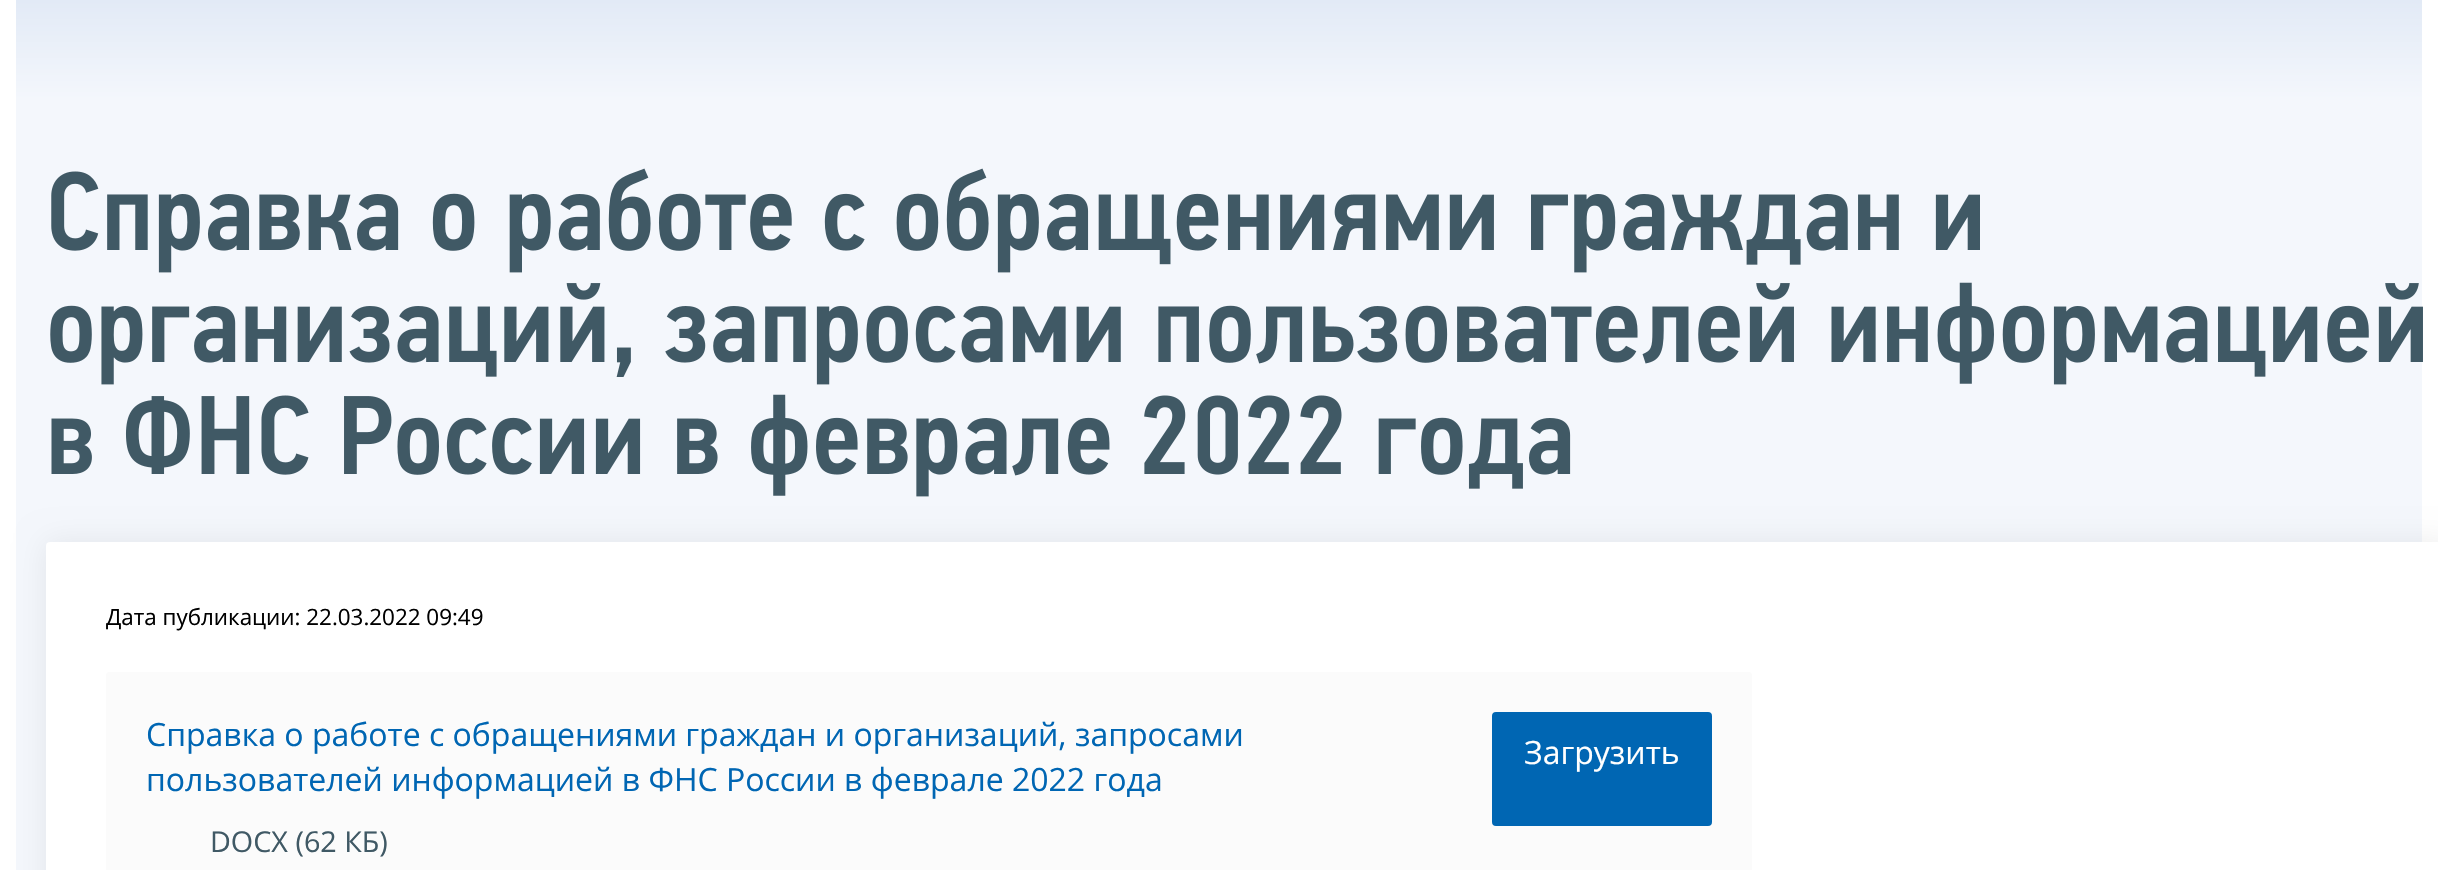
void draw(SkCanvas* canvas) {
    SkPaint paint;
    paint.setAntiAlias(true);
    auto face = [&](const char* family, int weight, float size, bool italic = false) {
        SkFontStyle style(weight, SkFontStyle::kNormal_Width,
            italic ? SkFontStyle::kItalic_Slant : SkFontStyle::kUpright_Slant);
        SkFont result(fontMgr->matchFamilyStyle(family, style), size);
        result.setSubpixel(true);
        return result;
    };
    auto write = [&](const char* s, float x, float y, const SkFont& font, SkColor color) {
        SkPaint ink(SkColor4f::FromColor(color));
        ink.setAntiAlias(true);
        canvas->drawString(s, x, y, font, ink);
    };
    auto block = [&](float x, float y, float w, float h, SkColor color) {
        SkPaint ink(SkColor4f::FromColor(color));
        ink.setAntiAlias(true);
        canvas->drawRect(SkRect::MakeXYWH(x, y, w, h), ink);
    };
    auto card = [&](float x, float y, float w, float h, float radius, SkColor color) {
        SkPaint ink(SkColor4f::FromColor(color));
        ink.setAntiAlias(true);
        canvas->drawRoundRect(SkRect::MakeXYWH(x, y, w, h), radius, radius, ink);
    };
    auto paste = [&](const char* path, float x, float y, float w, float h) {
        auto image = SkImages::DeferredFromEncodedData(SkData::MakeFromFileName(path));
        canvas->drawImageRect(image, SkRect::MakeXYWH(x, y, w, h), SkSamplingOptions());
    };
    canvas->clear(SK_ColorWHITE);
    block(16, 100, 2406, 770, SkColorSetRGB(244, 247, 252));
    {
        const SkColor colors[] = {SkColorSetRGB(226, 234, 246), SkColorSetRGB(244, 247, 252)};
        const float stops[] = {0, 1};
        const SkPoint ends[] = {{1219, 0}, {1219, 100}};
        paint.setShader(SkGradientShader::MakeLinear(ends, colors, stops, 2, SkTileMode::kClamp));
        paint.setAlpha(255);
    }
    canvas->drawRect(SkRect::MakeXYWH(16, 0, 2406, 100), paint);
    paste("pic1.png", 51, 168, 1929, 105);
    paste("pic2.png", 50, 282, 2373, 103);
    paint.setShader(nullptr);
    paint.setColor(SkColorSetARGB(18, 0, 0, 0));
    paint.setMaskFilter(SkMaskFilter::MakeBlur(kNormal_SkBlurStyle, 15));
    canvas->drawRoundRect(SkRect::MakeXYWH(46, 542, 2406, 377), 4, 4, paint);
    paint.setMaskFilter(nullptr);
    paste("pic3.png", 51, 394, 1520, 103);
    card(46, 542, 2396, 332, 4, SK_ColorWHITE);
    auto kFont1 = face("Open Sans", 400, 22.4f);
    write("Дата публикации: 22.03.2022 09:49", 106, 625, kFont1, SK_ColorBLACK);
    card(106, 672, 1646, 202, 4, SkColorSetRGB(251, 251, 251));
    auto kFont2 = face("Open Sans", 400, 32);
    write("Справка о работе с обращениями граждан и организаций, запросами", 146, 746, kFont2, SkColorSetRGB(0, 102, 179));
    write("пользователей информацией в ФНС России в феврале 2022 года", 146, 791, kFont2, SkColorSetRGB(0, 102, 179));
    auto kFont3 = face("Open Sans", 400, 28.75f);
    write("DOCX (62 КБ)", 210, 852, kFont3, SkColorSetRGB(64, 89, 101));
    paint.setColor(SkColorSetRGB(0, 102, 179));
    canvas->drawRoundRect(SkRect::MakeXYWH(1493, 713, 218, 112), 3, 3, paint);
    paint.setStyle(SkPaint::kStroke_Style);
    paint.setStrokeWidth(2);
    canvas->drawRoundRect(SkRect::MakeXYWH(1493, 713, 218, 112), 3, 3, paint);
    write("Загрузить", 1524, 764, kFont2, SK_ColorWHITE);
}
